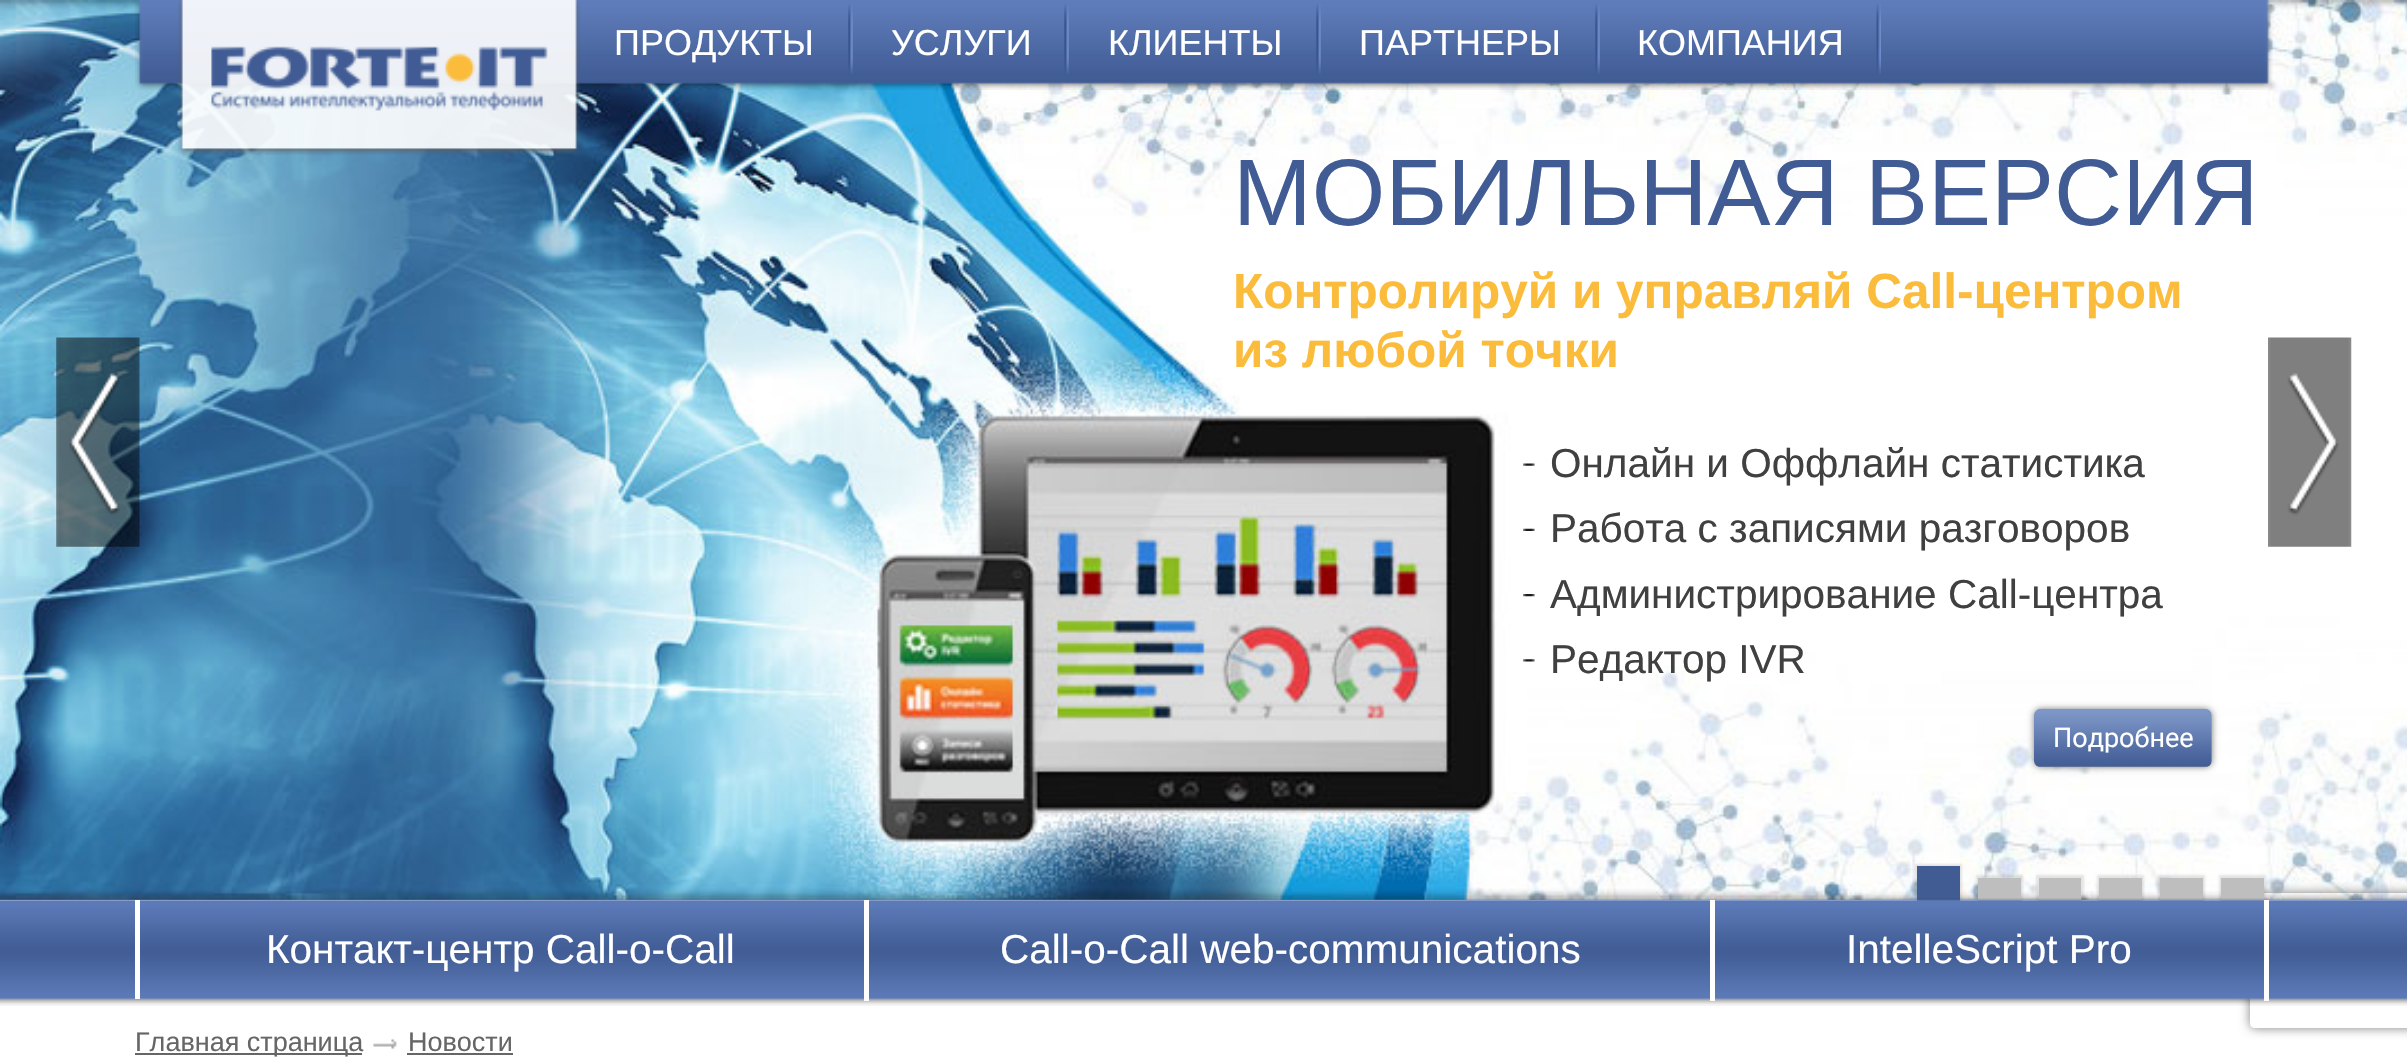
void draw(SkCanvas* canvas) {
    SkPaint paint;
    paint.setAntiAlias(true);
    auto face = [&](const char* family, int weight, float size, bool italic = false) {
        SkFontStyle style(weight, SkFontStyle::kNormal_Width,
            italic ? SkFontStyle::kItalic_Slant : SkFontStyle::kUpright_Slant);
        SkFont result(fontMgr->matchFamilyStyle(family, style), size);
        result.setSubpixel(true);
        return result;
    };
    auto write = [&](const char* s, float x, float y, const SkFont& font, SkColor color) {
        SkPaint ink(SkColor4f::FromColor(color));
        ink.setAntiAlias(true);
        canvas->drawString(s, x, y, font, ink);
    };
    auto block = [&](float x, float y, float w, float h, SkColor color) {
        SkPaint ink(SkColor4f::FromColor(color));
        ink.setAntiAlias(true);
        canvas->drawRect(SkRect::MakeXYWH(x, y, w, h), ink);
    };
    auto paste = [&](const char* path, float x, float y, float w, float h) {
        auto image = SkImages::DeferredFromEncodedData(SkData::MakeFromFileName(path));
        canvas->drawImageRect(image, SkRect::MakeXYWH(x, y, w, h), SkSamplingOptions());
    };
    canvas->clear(SK_ColorWHITE);
    paste("pic6.png", 0, 0, 2407, 900);
    paste("pic1.png", 135, 0, 2138, 90);
    paste("pic2.png", 178, 0, 403, 155);
    paste("pic3.png", 848, 4, 5, 70);
    auto kFont1 = face("Liberation Sans", 400, 36);
    write("ПРОДУКТЫ", 614, 55, kFont1, SK_ColorWHITE);
    paste("pic4.png", 1064, 4, 5, 70);
    write("УСЛУГИ", 891, 55, kFont1, SK_ColorWHITE);
    paste("pic4.png", 1316, 4, 5, 70);
    write("КЛИЕНТЫ", 1108, 55, kFont1, SK_ColorWHITE);
    paste("pic4.png", 1595, 4, 5, 70);
    write("ПАРТНЕРЫ", 1359, 55, kFont1, SK_ColorWHITE);
    paste("pic5.png", 1876, 4, 5, 70);
    write("КОМПАНИЯ", 1637, 55, kFont1, SK_ColorWHITE);
    auto kFont2 = face("Liberation Sans", 400, 94.5f);
    write("МОБИЛЬНАЯ ВЕРСИЯ", 1233, 225, kFont2, SkColorSetRGB(65, 92, 148));
    auto kFont3 = face("Liberation Sans", 700, 49.5f);
    write("Контролируй и управляй Call-центром", 1233, 308, kFont3, SkColorSetRGB(251, 188, 59));
    write("из любой точки", 1233, 367, kFont3, SkColorSetRGB(251, 188, 59));
    paste("pic7.png", 1523, 463, 12, 3);
    auto kFont4 = face("Liberation Sans", 400, 40.5f);
    write("Онлайн и Оффлайн статистика", 1550, 477, kFont4, SkColorSetRGB(64, 64, 64));
    paste("pic8.png", 1523, 528, 12, 3);
    write("Работа с записями разговоров", 1550, 542, kFont4, SkColorSetRGB(64, 64, 64));
    paste("pic9.png", 1523, 594, 12, 3);
    write("Администрирование Call-центра", 1550, 608, kFont4, SkColorSetRGB(64, 64, 64));
    paste("pic10.png", 1523, 659, 12, 3);
    write("Редактор IVR", 1550, 673, kFont4, SkColorSetRGB(64, 64, 64));
    paint.setColor(SkColorSetARGB(128, 0, 0, 0));
    paint.setMaskFilter(SkMaskFilter::MakeBlur(kNormal_SkBlurStyle, 3.5f));
    canvas->drawRoundRect(SkRect::MakeXYWH(2034, 709, 178, 58), 7, 7, paint);
    paint.setMaskFilter(nullptr);
    paste("pic11.png", 2034, 708, 178, 60);
    auto kFont5 = face("Roboto", 400, 27);
    write("Подробнее", 2053, 747, kFont5, SK_ColorWHITE);
    paste("pic12.png", 56, 337, 84, 210);
    paste("pic13.png", 2268, 337, 84, 210);
    paint.setColor(SkColorSetARGB(26, 0, 0, 0));
    paint.setMaskFilter(SkMaskFilter::MakeBlur(kNormal_SkBlurStyle, 1));
    canvas->drawRect(SkRect::MakeXYWH(1915, 864, 47, 41), paint);
    paint.setMaskFilter(nullptr);
    block(1917, 866, 43, 35, SkColorSetRGB(64, 92, 147));
    paint.setMaskFilter(SkMaskFilter::MakeBlur(kNormal_SkBlurStyle, 1));
    canvas->drawRect(SkRect::MakeXYWH(1976, 875, 47, 30), paint);
    paint.setMaskFilter(nullptr);
    block(1978, 878, 43, 23, SkColorSetRGB(190, 190, 190));
    paint.setMaskFilter(SkMaskFilter::MakeBlur(kNormal_SkBlurStyle, 1));
    canvas->drawRect(SkRect::MakeXYWH(2036, 875, 48, 30), paint);
    paint.setMaskFilter(nullptr);
    block(2039, 878, 42, 23, SkColorSetRGB(190, 190, 190));
    paint.setMaskFilter(SkMaskFilter::MakeBlur(kNormal_SkBlurStyle, 1));
    canvas->drawRect(SkRect::MakeXYWH(2097, 875, 47, 30), paint);
    paint.setMaskFilter(nullptr);
    block(2099, 878, 43, 23, SkColorSetRGB(190, 190, 190));
    paint.setMaskFilter(SkMaskFilter::MakeBlur(kNormal_SkBlurStyle, 1));
    canvas->drawRect(SkRect::MakeXYWH(2158, 875, 47, 30), paint);
    paint.setMaskFilter(nullptr);
    block(2160, 878, 43, 23, SkColorSetRGB(190, 190, 190));
    paint.setMaskFilter(SkMaskFilter::MakeBlur(kNormal_SkBlurStyle, 1));
    canvas->drawRect(SkRect::MakeXYWH(2219, 875, 47, 30), paint);
    paint.setMaskFilter(nullptr);
    canvas->save();
    canvas->clipPath(SkPathBuilder(SkPathFillType::kEvenOdd).moveTo(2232, 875).lineTo(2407, 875).lineTo(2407, 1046).lineTo(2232, 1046).close().moveTo(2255, 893).lineTo(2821, 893).cubicTo(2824, 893, 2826, 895, 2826, 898).lineTo(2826, 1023).cubicTo(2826, 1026, 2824, 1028, 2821, 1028).lineTo(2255, 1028).cubicTo(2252, 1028, 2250, 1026, 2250, 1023).lineTo(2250, 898).cubicTo(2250, 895, 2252, 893, 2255, 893).close().detach(), true);
    paint.setColor(SkColorSetRGB(128, 128, 128));
    paint.setMaskFilter(SkMaskFilter::MakeBlur(kNormal_SkBlurStyle, 5.5f));
    canvas->drawRoundRect(SkRect::MakeXYWH(2250, 893, 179, 135), 5, 5, paint);
    paint.setMaskFilter(nullptr);
    canvas->restore();
    block(2221, 878, 43, 23, SkColorSetRGB(190, 190, 190));
    paste("pic14.png", 0, 898, 2407, 108);
    block(135, 900, 5, 99, SK_ColorWHITE);
    block(864, 900, 5, 101, SK_ColorWHITE);
    write("Контакт-центр Call-o-Call", 266, 963, kFont4, SK_ColorWHITE);
    block(1710, 900, 5, 101, SK_ColorWHITE);
    write("Call-o-Call web-communications", 1000, 963, kFont4, SK_ColorWHITE);
    block(2264, 900, 5, 101, SK_ColorWHITE);
    write("IntelleScript Pro", 1846, 963, kFont4, SK_ColorWHITE);
    block(135, 1053, 227, 2, SkColorSetRGB(102, 102, 102));
    auto kFont6 = face("Liberation Sans", 400, 27);
    write("Главная страница", 135, 1051, kFont6, SkColorSetRGB(102, 102, 102));
    paste("pic15.png", 373, 1039, 24, 11);
    write("Новости", 408, 1051, kFont6, SkColorSetRGB(102, 102, 102));
    block(407, 1053, 106, 2, SkColorSetRGB(102, 102, 102));
}
